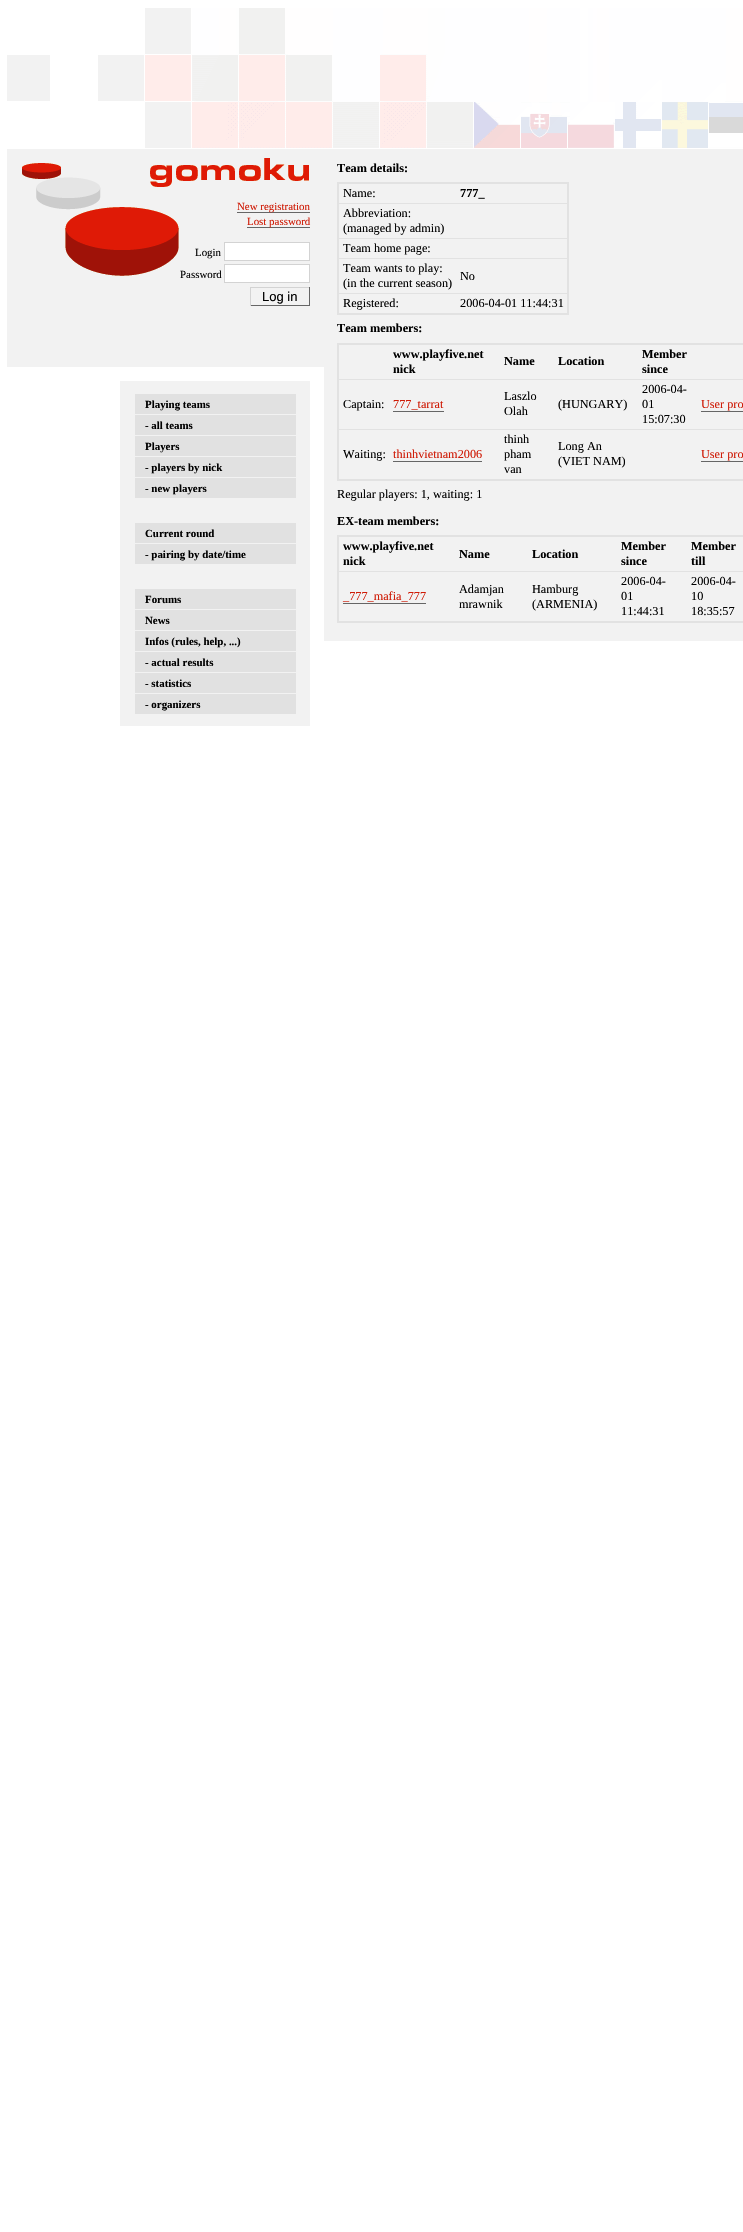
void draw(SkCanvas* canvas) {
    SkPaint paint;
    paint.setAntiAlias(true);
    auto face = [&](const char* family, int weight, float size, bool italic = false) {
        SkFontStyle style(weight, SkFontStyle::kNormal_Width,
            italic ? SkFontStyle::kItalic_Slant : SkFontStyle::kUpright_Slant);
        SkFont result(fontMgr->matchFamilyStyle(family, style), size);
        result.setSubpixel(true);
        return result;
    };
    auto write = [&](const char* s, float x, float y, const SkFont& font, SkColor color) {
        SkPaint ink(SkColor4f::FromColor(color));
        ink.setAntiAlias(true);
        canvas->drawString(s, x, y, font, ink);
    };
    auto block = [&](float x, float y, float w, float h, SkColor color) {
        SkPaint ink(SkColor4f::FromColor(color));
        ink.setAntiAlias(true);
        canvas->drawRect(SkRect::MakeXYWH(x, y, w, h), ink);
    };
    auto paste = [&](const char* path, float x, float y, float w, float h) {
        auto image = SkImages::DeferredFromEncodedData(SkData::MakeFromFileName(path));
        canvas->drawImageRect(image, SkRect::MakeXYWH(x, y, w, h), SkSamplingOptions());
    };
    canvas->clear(SK_ColorWHITE);
    paste("pic1.png", 7, 8, 736, 140);
    block(7, 149, 317, 218, SkColorSetRGB(242, 242, 242));
    paste("pic2.png", 22, 158, 287, 118);
    block(237, 212, 73, 1, SkColorSetRGB(102, 102, 102));
    auto kFont1 = face("Liberation Serif", 400, 10.9f);
    write("New registration", 237, 210, kFont1, SkColorSetRGB(207, 26, 5));
    block(247, 227, 63, 1, SkColorSetRGB(102, 102, 102));
    write("Lost password", 247, 225, kFont1, SkColorSetRGB(207, 26, 5));
    write("Login", 195, 256, kFont1, SK_ColorBLACK);
    paint.setColor(SK_ColorWHITE);
    canvas->drawRect(SkRect::MakeXYWH(224.5f, 242.5f, 85, 18), paint);
    paint.setStyle(SkPaint::kStroke_Style);
    paint.setStrokeWidth(1);
    paint.setColor(SkColorSetRGB(211, 211, 211));
    canvas->drawRect(SkRect::MakeXYWH(224.5f, 242.5f, 85, 18), paint);
    write("Password", 180, 278, kFont1, SK_ColorBLACK);
    paint.setStyle(SkPaint::kFill_Style);
    paint.setColor(SK_ColorWHITE);
    canvas->drawRect(SkRect::MakeXYWH(224.5f, 264.5f, 85, 18), paint);
    paint.setStyle(SkPaint::kStroke_Style);
    paint.setColor(SkColorSetRGB(211, 211, 211));
    canvas->drawRect(SkRect::MakeXYWH(224.5f, 264.5f, 85, 18), paint);
    block(250, 287, 60, 1, SkColorSetRGB(211, 211, 211));
    block(309, 287, 1, 19, SkColorSetRGB(102, 102, 102));
    block(250, 305, 60, 1, SkColorSetRGB(102, 102, 102));
    block(250, 287, 1, 19, SkColorSetRGB(211, 211, 211));
    auto kFont2 = face("Liberation Sans", 400, 13);
    write("Log in", 262, 301, kFont2, SK_ColorBLACK);
    block(120, 381, 190, 345, SkColorSetRGB(242, 242, 242));
    block(135, 394, 161, 20, SkColorSetRGB(225, 225, 225));
    auto kFont3 = face("Liberation Serif", 700, 10.9f);
    write("Playing teams", 145, 408, kFont3, SK_ColorBLACK);
    block(135, 415, 161, 20, SkColorSetRGB(225, 225, 225));
    write("- all teams", 145, 429, kFont3, SK_ColorBLACK);
    block(135, 436, 161, 20, SkColorSetRGB(225, 225, 225));
    write("Players", 145, 450, kFont3, SK_ColorBLACK);
    block(135, 457, 161, 20, SkColorSetRGB(225, 225, 225));
    write("- players by nick", 145, 471, kFont3, SK_ColorBLACK);
    block(135, 478, 161, 20, SkColorSetRGB(225, 225, 225));
    write("- new players", 145, 492, kFont3, SK_ColorBLACK);
    block(135, 523, 161, 20, SkColorSetRGB(225, 225, 225));
    write("Current round", 145, 537, kFont3, SK_ColorBLACK);
    block(135, 544, 161, 20, SkColorSetRGB(225, 225, 225));
    write("- pairing by date/time", 145, 558, kFont3, SK_ColorBLACK);
    block(135, 589, 161, 20, SkColorSetRGB(225, 225, 225));
    write("Forums", 145, 603, kFont3, SK_ColorBLACK);
    block(135, 610, 161, 20, SkColorSetRGB(225, 225, 225));
    write("News", 145, 624, kFont3, SK_ColorBLACK);
    block(135, 631, 161, 20, SkColorSetRGB(225, 225, 225));
    write("Infos (rules, help, ...)", 145, 645, kFont3, SK_ColorBLACK);
    block(135, 652, 161, 20, SkColorSetRGB(225, 225, 225));
    write("- actual results", 145, 666, kFont3, SK_ColorBLACK);
    block(135, 673, 161, 20, SkColorSetRGB(225, 225, 225));
    write("- statistics", 145, 687, kFont3, SK_ColorBLACK);
    block(135, 694, 161, 20, SkColorSetRGB(225, 225, 225));
    write("- organizers", 145, 708, kFont3, SK_ColorBLACK);
    block(324, 149, 419, 492, SkColorSetRGB(242, 242, 242));
    auto kFont4 = face("Liberation Serif", 700, 12.25f);
    write("Team details:", 337, 172, kFont4, SK_ColorBLACK);
    block(337, 182, 232, 2, SkColorSetRGB(226, 226, 226));
    block(338, 203, 230, 1, SkColorSetRGB(226, 226, 226));
    block(338, 238, 230, 1, SkColorSetRGB(226, 226, 226));
    block(338, 258, 230, 1, SkColorSetRGB(226, 226, 226));
    block(338, 293, 230, 1, SkColorSetRGB(226, 226, 226));
    block(567, 182, 2, 133, SkColorSetRGB(226, 226, 226));
    block(337, 313, 232, 2, SkColorSetRGB(226, 226, 226));
    block(337, 182, 2, 133, SkColorSetRGB(226, 226, 226));
    auto kFont5 = face("Liberation Serif", 400, 12.25f);
    write("Name:", 343, 197, kFont5, SK_ColorBLACK);
    write("777_", 460, 197, kFont4, SK_ColorBLACK);
    write("Abbreviation:", 343, 217, kFont5, SK_ColorBLACK);
    write("(managed by admin)", 343, 232, kFont5, SK_ColorBLACK);
    write("Team home page:", 343, 252, kFont5, SK_ColorBLACK);
    write("Team wants to play:", 343, 272, kFont5, SK_ColorBLACK);
    write("(in the current season)", 343, 287, kFont5, SK_ColorBLACK);
    write("No", 460, 280, kFont5, SK_ColorBLACK);
    write("Registered:", 343, 307, kFont5, SK_ColorBLACK);
    write("2006-04-01 11:44:31", 460, 307, kFont5, SK_ColorBLACK);
    write("Team members:", 337, 332, kFont4, SK_ColorBLACK);
    block(337, 343, 406, 2, SkColorSetRGB(226, 226, 226));
    block(337, 479, 406, 2, SkColorSetRGB(226, 226, 226));
    block(338, 379, 405, 1, SkColorSetRGB(226, 226, 226));
    block(338, 429, 405, 1, SkColorSetRGB(226, 226, 226));
    block(337, 343, 2, 138, SkColorSetRGB(226, 226, 226));
    write("www.playfive.net", 393, 358, kFont4, SK_ColorBLACK);
    write("nick", 393, 373, kFont4, SK_ColorBLACK);
    write("Name", 504, 365, kFont4, SK_ColorBLACK);
    write("Location", 558, 365, kFont4, SK_ColorBLACK);
    write("Member", 642, 358, kFont4, SK_ColorBLACK);
    write("since", 642, 373, kFont4, SK_ColorBLACK);
    write("Captain:", 343, 408, kFont5, SK_ColorBLACK);
    write("777_tarrat", 393, 408, kFont5, SkColorSetRGB(207, 26, 5));
    block(393, 411, 51, 1, SkColorSetRGB(102, 102, 102));
    write("Laszlo", 504, 400, kFont5, SK_ColorBLACK);
    write("Olah", 504, 415, kFont5, SK_ColorBLACK);
    write("(HUNGARY)", 558, 408, kFont5, SK_ColorBLACK);
    write("2006-04-", 642, 393, kFont5, SK_ColorBLACK);
    write("01", 642, 408, kFont5, SK_ColorBLACK);
    write("15:07:30", 642, 423, kFont5, SK_ColorBLACK);
    write("User pro", 701, 408, kFont5, SkColorSetRGB(207, 26, 5));
    block(701, 411, 42, 1, SkColorSetRGB(102, 102, 102));
    write("Waiting:", 343, 458, kFont5, SK_ColorBLACK);
    write("thinhvietnam2006", 393, 458, kFont5, SkColorSetRGB(207, 26, 5));
    block(393, 461, 89, 1, SkColorSetRGB(102, 102, 102));
    write("thinh", 504, 443, kFont5, SK_ColorBLACK);
    write("pham", 504, 458, kFont5, SK_ColorBLACK);
    write("van", 504, 473, kFont5, SK_ColorBLACK);
    write("Long An", 558, 450, kFont5, SK_ColorBLACK);
    write("(VIET NAM)", 558, 465, kFont5, SK_ColorBLACK);
    write("User pro", 701, 458, kFont5, SkColorSetRGB(207, 26, 5));
    block(701, 461, 42, 1, SkColorSetRGB(102, 102, 102));
    write("Regular players: 1, waiting: 1", 337, 498, kFont5, SK_ColorBLACK);
    write("EX-team members:", 337, 525, kFont4, SK_ColorBLACK);
    block(337, 535, 406, 2, SkColorSetRGB(226, 226, 226));
    block(337, 621, 406, 2, SkColorSetRGB(226, 226, 226));
    block(338, 571, 405, 1, SkColorSetRGB(226, 226, 226));
    block(337, 535, 2, 88, SkColorSetRGB(226, 226, 226));
    write("www.playfive.net", 343, 550, kFont4, SK_ColorBLACK);
    write("nick", 343, 565, kFont4, SK_ColorBLACK);
    write("Name", 459, 558, kFont4, SK_ColorBLACK);
    write("Location", 532, 558, kFont4, SK_ColorBLACK);
    write("Member", 621, 550, kFont4, SK_ColorBLACK);
    write("since", 621, 565, kFont4, SK_ColorBLACK);
    write("Member", 691, 550, kFont4, SK_ColorBLACK);
    write("till", 691, 565, kFont4, SK_ColorBLACK);
    write("_777_mafia_777", 343, 600, kFont5, SkColorSetRGB(207, 26, 5));
    block(343, 603, 83, 1, SkColorSetRGB(102, 102, 102));
    write("Adamjan", 459, 593, kFont5, SK_ColorBLACK);
    write("mrawnik", 459, 608, kFont5, SK_ColorBLACK);
    write("Hamburg", 532, 593, kFont5, SK_ColorBLACK);
    write("(ARMENIA)", 532, 608, kFont5, SK_ColorBLACK);
    write("2006-04-", 621, 585, kFont5, SK_ColorBLACK);
    write("01", 621, 600, kFont5, SK_ColorBLACK);
    write("11:44:31", 621, 615, kFont5, SK_ColorBLACK);
    write("2006-04-", 691, 585, kFont5, SK_ColorBLACK);
    write("10", 691, 600, kFont5, SK_ColorBLACK);
    write("18:35:57", 691, 615, kFont5, SK_ColorBLACK);
}
